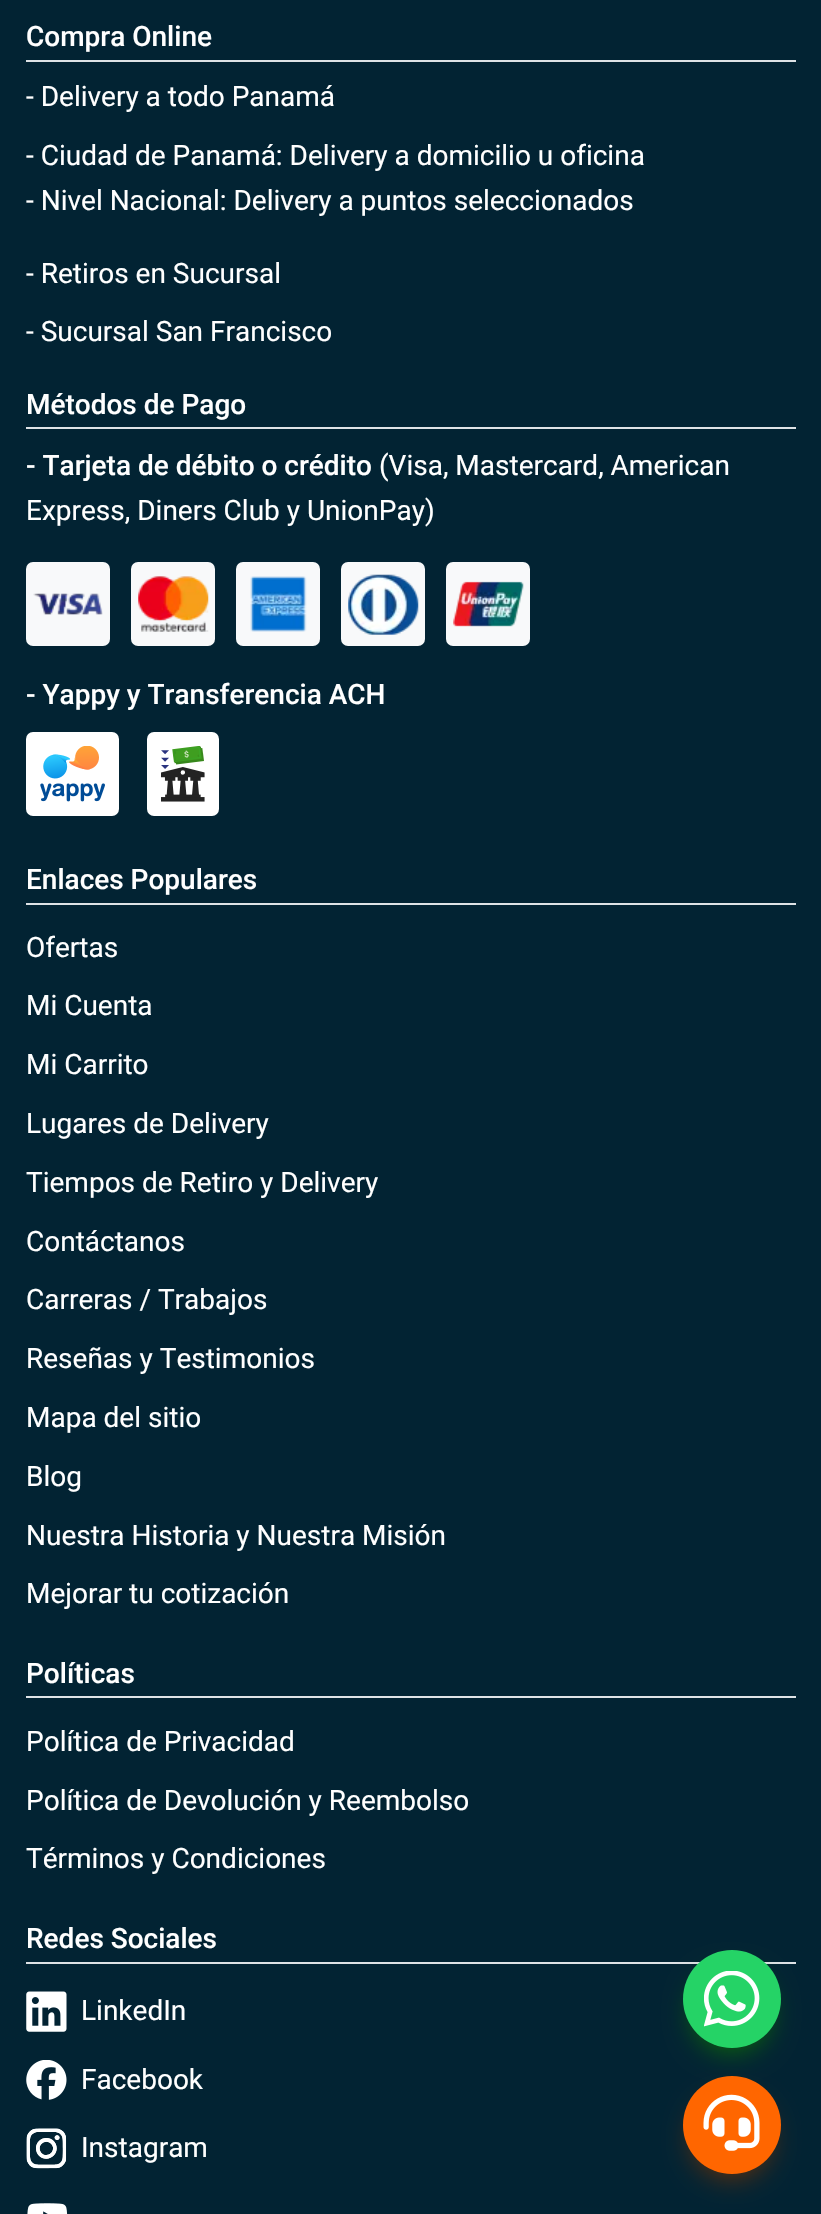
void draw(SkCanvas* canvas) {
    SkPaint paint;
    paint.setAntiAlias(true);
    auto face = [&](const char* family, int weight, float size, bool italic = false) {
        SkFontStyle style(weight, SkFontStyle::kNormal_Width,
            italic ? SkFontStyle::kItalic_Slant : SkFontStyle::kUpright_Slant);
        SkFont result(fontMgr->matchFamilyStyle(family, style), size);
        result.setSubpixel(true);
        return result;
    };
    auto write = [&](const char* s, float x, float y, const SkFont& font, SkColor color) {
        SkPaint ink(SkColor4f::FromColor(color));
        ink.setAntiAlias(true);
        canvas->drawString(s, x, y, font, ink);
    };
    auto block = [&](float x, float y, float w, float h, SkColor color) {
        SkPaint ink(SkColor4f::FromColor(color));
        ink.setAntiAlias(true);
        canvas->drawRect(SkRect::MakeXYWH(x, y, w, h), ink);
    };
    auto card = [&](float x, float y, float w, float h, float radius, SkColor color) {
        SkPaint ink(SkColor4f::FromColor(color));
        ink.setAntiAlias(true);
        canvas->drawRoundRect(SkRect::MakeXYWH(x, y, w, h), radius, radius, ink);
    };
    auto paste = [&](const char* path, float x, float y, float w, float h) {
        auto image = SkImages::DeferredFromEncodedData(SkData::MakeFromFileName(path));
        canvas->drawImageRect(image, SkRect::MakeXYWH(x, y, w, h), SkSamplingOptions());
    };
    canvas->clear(SkColorSetRGB(2, 35, 51));
    block(26, 60, 770, 2, SkColorSetRGB(222, 226, 230));
    auto kFont1 = face("Roboto", 500, 28);
    write("Compra Online", 26, 46, kFont1, SK_ColorWHITE);
    auto kFont2 = face("Roboto", 400, 28);
    write("- Delivery a todo Panamá", 26, 106, kFont2, SK_ColorWHITE);
    write("- Ciudad de Panamá: Delivery a domicilio u oficina", 26, 165, kFont2, SK_ColorWHITE);
    write("- Nivel Nacional: Delivery a puntos seleccionados", 26, 210, kFont2, SK_ColorWHITE);
    write("- Retiros en Sucursal", 26, 283, kFont2, SK_ColorWHITE);
    write("- Sucursal San Francisco", 26, 341, kFont2, SK_ColorWHITE);
    block(26, 427, 770, 2, SkColorSetRGB(222, 226, 230));
    write("Métodos de Pago", 26, 414, kFont1, SK_ColorWHITE);
    write("- Tarjeta de débito o crédito", 26, 475, kFont1, SK_ColorWHITE);
    write("(Visa, Mastercard, American", 379, 475, kFont2, SK_ColorWHITE);
    write("Express, Diners Club y UnionPay)", 26, 520, kFont2, SK_ColorWHITE);
    card(26, 562, 84, 84, 7, SkColorSetRGB(248, 249, 250));
    paste("pic1.png", 33, 593, 70, 22);
    card(131, 562, 84, 84, 7, SkColorSetRGB(248, 249, 250));
    paste("pic2.png", 138, 576, 71, 56);
    card(236, 562, 84, 84, 7, SkColorSetRGB(248, 249, 250));
    paste("pic3.png", 250, 576, 57, 56);
    card(341, 562, 84, 84, 7, SkColorSetRGB(248, 249, 250));
    paste("pic4.png", 348, 574, 71, 61);
    card(446, 562, 84, 84, 7, SkColorSetRGB(248, 249, 250));
    paste("pic5.png", 453, 581, 71, 46);
    write("- Yappy y Transferencia ACH", 26, 704, kFont1, SK_ColorWHITE);
    card(26, 732, 93, 84, 7, SK_ColorWHITE);
    paste("pic6.png", 40, 746, 65, 56);
    card(147, 732, 72, 84, 7, SK_ColorWHITE);
    paste("pic7.png", 161, 746, 44, 56);
    block(26, 903, 770, 2, SkColorSetRGB(222, 226, 230));
    write("Enlaces Populares", 26, 889, kFont1, SK_ColorWHITE);
    write("Ofertas", 26, 957, kFont2, SK_ColorWHITE);
    write("Mi Cuenta", 26, 1015, kFont2, SK_ColorWHITE);
    write("Mi Carrito", 26, 1074, kFont2, SK_ColorWHITE);
    write("Lugares de Delivery", 26, 1133, kFont2, SK_ColorWHITE);
    write("Tiempos de Retiro y Delivery", 26, 1192, kFont2, SK_ColorWHITE);
    write("Contáctanos", 26, 1251, kFont2, SK_ColorWHITE);
    write("Carreras / Trabajos", 26, 1309, kFont2, SK_ColorWHITE);
    write("Reseñas y Testimonios", 26, 1368, kFont2, SK_ColorWHITE);
    write("Mapa del sitio", 26, 1427, kFont2, SK_ColorWHITE);
    write("Blog", 26, 1486, kFont2, SK_ColorWHITE);
    write("Nuestra Historia y Nuestra Misión", 26, 1545, kFont2, SK_ColorWHITE);
    write("Mejorar tu cotización", 26, 1603, kFont2, SK_ColorWHITE);
    block(26, 1696, 770, 2, SkColorSetRGB(222, 226, 230));
    write("Políticas", 26, 1683, kFont1, SK_ColorWHITE);
    write("Política de Privacidad", 26, 1751, kFont2, SK_ColorWHITE);
    write("Política de Devolución y Reembolso", 26, 1810, kFont2, SK_ColorWHITE);
    write("Términos y Condiciones", 26, 1868, kFont2, SK_ColorWHITE);
    block(26, 1962, 770, 2, SkColorSetRGB(222, 226, 230));
    write("Redes Sociales", 26, 1948, kFont1, SK_ColorWHITE);
    paste("pic8.png", 26, 1991, 41, 41);
    write("LinkedIn", 81, 2020, kFont2, SK_ColorWHITE);
    paste("pic9.png", 26, 2060, 41, 40);
    write("Facebook", 81, 2089, kFont2, SK_ColorWHITE);
    paste("pic10.png", 26, 2128, 41, 41);
    write("Instagram", 81, 2157, kFont2, SK_ColorWHITE);
    paste("pic11.png", 27, 2203, 41, 11);
    paint.setColor(SkColorSetRGB(13, 109, 6));
    paint.setMaskFilter(SkMaskFilter::MakeBlur(kNormal_SkBlurStyle, 14));
    canvas->drawRoundRect(SkRect::MakeXYWH(693, 1974, 77, 77), 38.5f, 38.5f, paint);
    paint.setMaskFilter(nullptr);
    paint.setColor(SkColorSetRGB(37, 211, 102));
    canvas->drawCircle(732, 1999, 49, paint);
    paste("pic12.png", 704, 1971, 56, 56);
    paint.setColor(SkColorSetRGB(109, 49, 6));
    paint.setMaskFilter(SkMaskFilter::MakeBlur(kNormal_SkBlurStyle, 14));
    canvas->drawRoundRect(SkRect::MakeXYWH(693, 2100, 77, 77), 38.5f, 38.5f, paint);
    paint.setMaskFilter(nullptr);
    paint.setColor(SkColorSetRGB(255, 102, 0));
    canvas->drawCircle(732, 2125, 49, paint);
    paste("pic13.png", 703, 2094, 57, 57);
}
